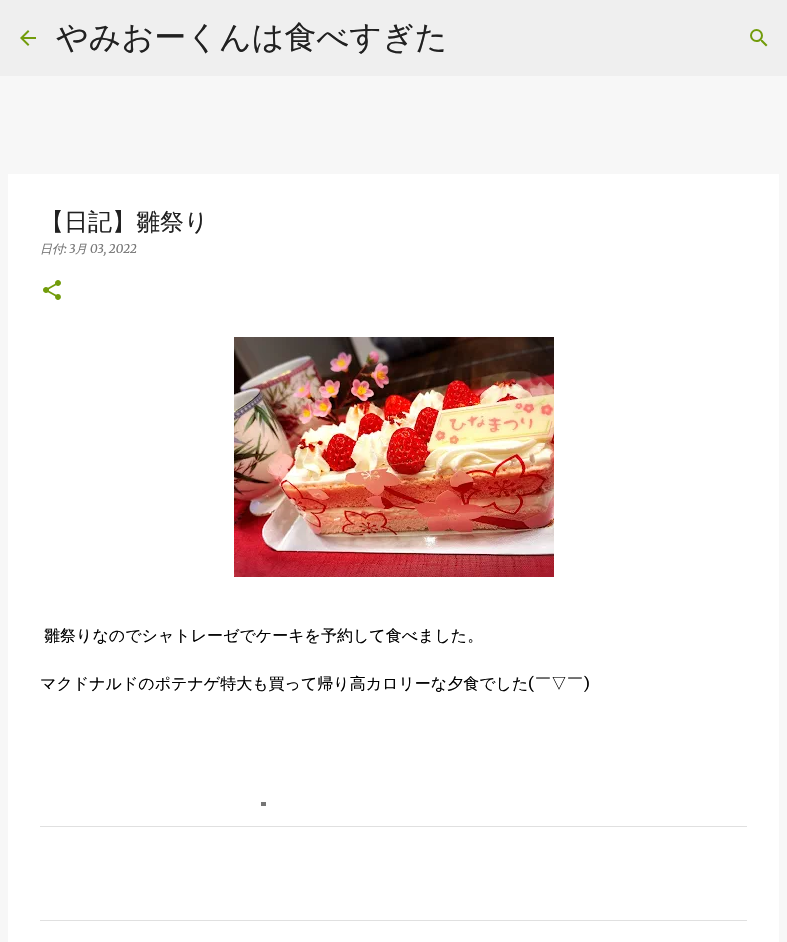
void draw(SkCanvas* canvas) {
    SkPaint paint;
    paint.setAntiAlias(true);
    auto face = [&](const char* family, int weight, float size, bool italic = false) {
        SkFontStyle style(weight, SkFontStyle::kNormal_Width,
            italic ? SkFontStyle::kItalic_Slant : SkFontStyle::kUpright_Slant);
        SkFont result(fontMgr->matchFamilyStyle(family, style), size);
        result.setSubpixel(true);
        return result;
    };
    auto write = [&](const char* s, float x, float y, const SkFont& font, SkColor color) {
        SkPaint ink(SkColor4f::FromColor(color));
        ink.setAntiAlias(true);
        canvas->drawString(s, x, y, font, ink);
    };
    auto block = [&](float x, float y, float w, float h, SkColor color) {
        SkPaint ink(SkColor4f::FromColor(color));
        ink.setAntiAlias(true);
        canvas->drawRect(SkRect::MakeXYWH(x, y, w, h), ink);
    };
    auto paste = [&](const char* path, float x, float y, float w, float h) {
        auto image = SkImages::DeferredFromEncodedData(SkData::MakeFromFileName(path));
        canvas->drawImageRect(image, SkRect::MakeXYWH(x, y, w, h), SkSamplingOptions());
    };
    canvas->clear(SkColorSetRGB(247, 247, 247));
    block(0, 0, 787, 76, SkColorSetRGB(239, 239, 239));
    paste("pic1.png", 20, 30, 16, 16);
    auto kFont1 = face("WenQuanYi Zen Hei", 500, 32);
    write("やみおーくんは食べすぎた", 56, 48, kFont1, SkColorSetRGB(33, 33, 33));
    paste("pic2.png", 750, 29, 18, 18);
    block(8, 174, 771, 768, SK_ColorWHITE);
    block(40, 826, 707, 1, SkColorSetRGB(224, 224, 224));
    block(40, 920, 707, 1, SkColorSetRGB(224, 224, 224));
    auto kFont2 = face("WenQuanYi Zen Hei", 500, 24);
    write("【日記】雛祭り", 40, 230, kFont2, SkColorSetRGB(33, 33, 33));
    auto kFont3 = face("WenQuanYi Zen Hei", 500, 12, true);
    write("日付", 40, 253, kFont3, SkColorSetRGB(117, 117, 117));
    auto kFont4 = face("Merriweather", 400, 12, true);
    write(": 3", 64, 253, kFont4, SkColorSetRGB(117, 117, 117));
    write("月", 75, 253, kFont3, SkColorSetRGB(117, 117, 117));
    write("03, 2022", 90, 253, kFont4, SkColorSetRGB(117, 117, 117));
    paste("pic3.png", 43, 280, 18, 20);
    paste("pic4.png", 234, 337, 320, 240);
    auto kFont5 = face("WenQuanYi Zen Hei", 500, 16);
    write("雛祭りなのでシャトレーゼでケーキを予約して食べました。", 44, 641, kFont5, SK_ColorBLACK);
    write("マクドナルドのポテナゲ特大も買って帰り高カロリーな夕食でした", 40, 689, kFont5, SK_ColorBLACK);
    auto kFont6 = face("Merriweather", 300, 16);
    write("(", 528, 689, kFont6, SK_ColorBLACK);
    write("￣▽￣", 535, 689, kFont5, SK_ColorBLACK);
    write(")", 583, 689, kFont6, SK_ColorBLACK);
    block(261, 802, 5, 4, SkColorSetRGB(117, 117, 117));
}
